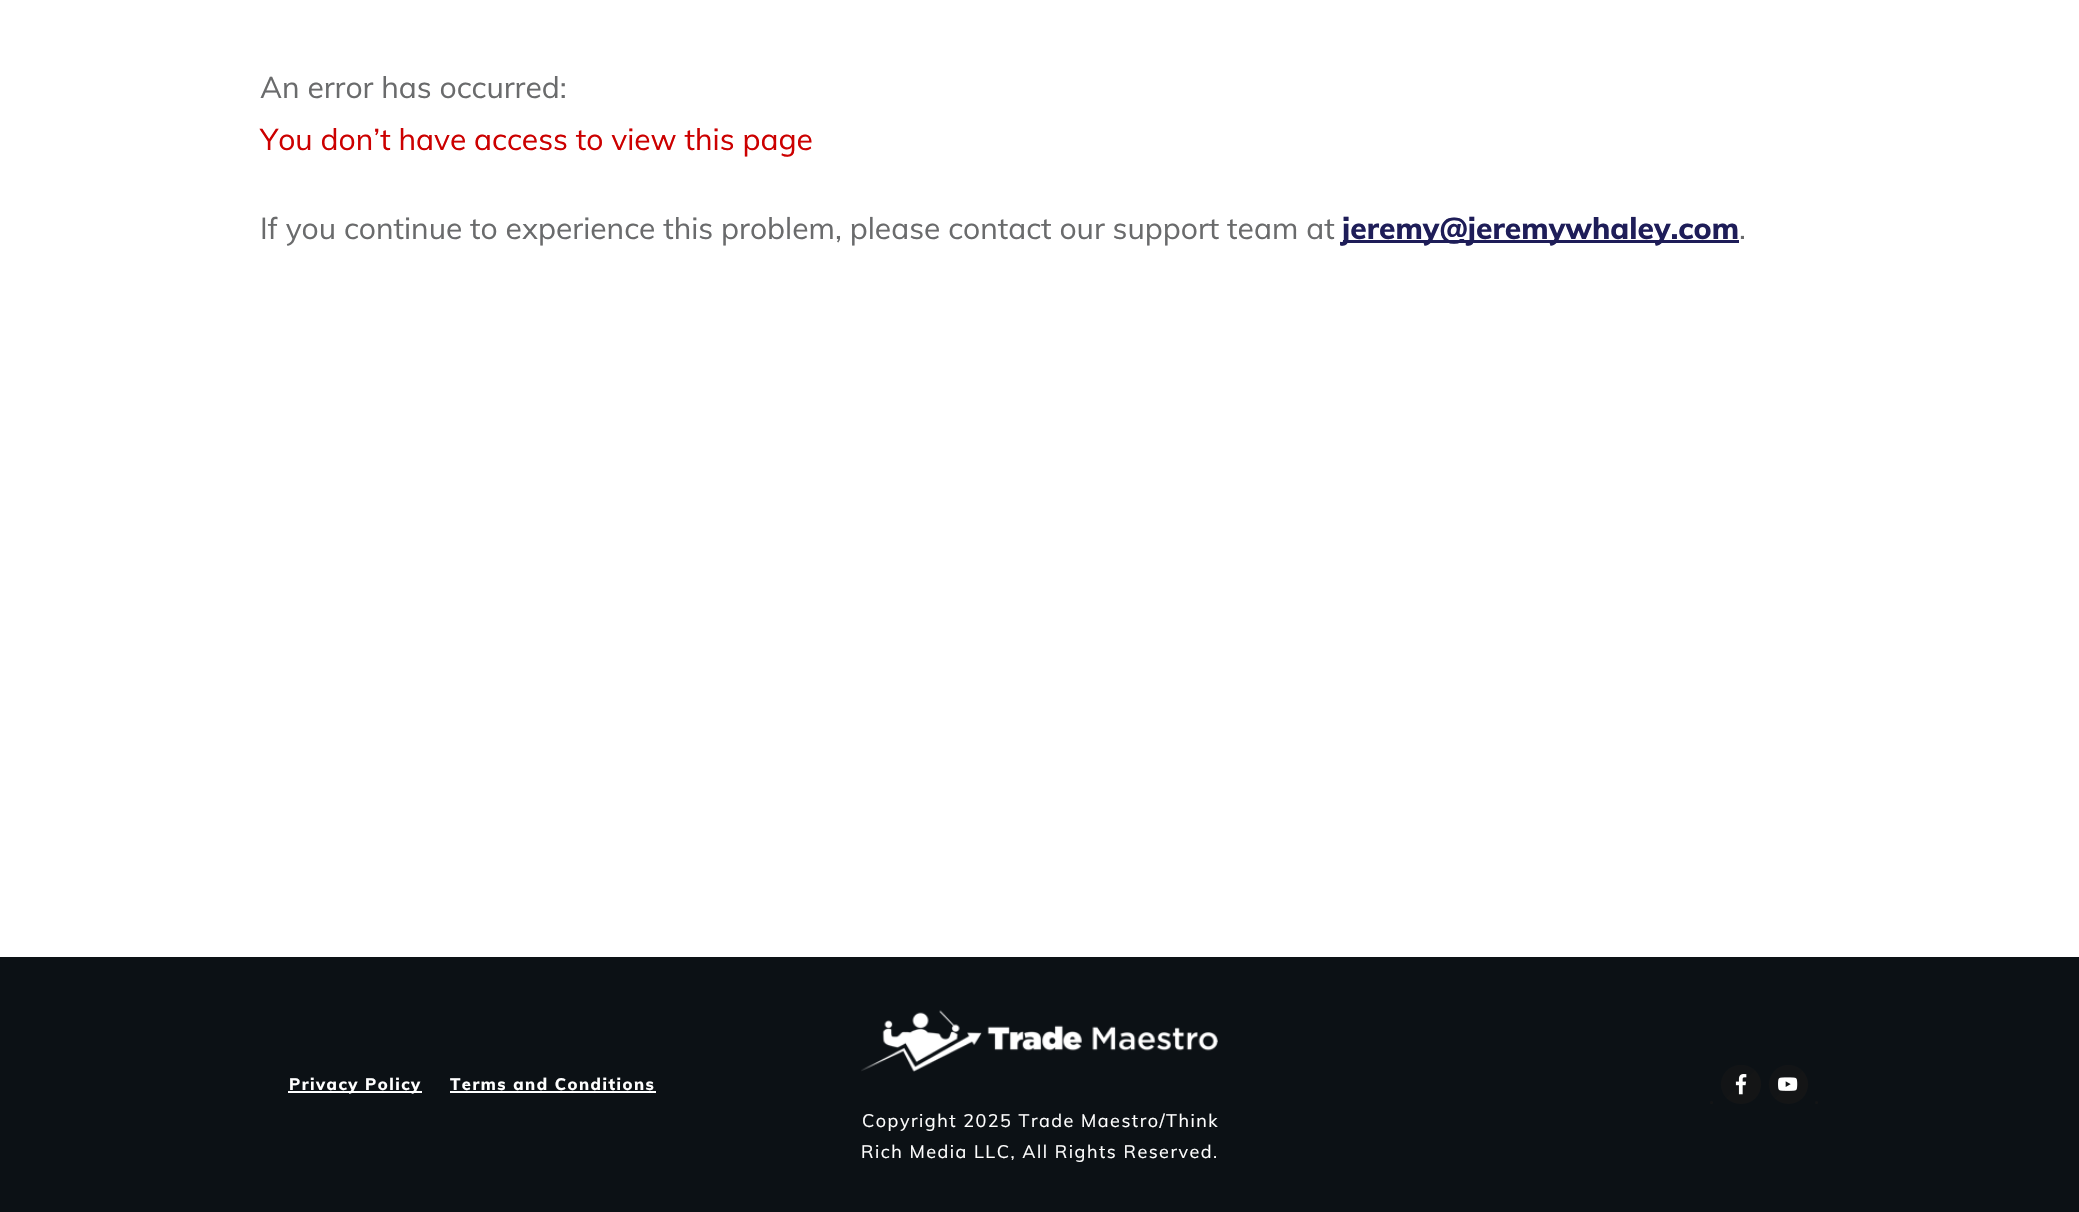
void draw(SkCanvas* canvas) {
    SkPaint paint;
    paint.setAntiAlias(true);
    auto face = [&](const char* family, int weight, float size, bool italic = false) {
        SkFontStyle style(weight, SkFontStyle::kNormal_Width,
            italic ? SkFontStyle::kItalic_Slant : SkFontStyle::kUpright_Slant);
        SkFont result(fontMgr->matchFamilyStyle(family, style), size);
        result.setSubpixel(true);
        return result;
    };
    auto write = [&](const char* s, float x, float y, const SkFont& font, SkColor color) {
        SkPaint ink(SkColor4f::FromColor(color));
        ink.setAntiAlias(true);
        canvas->drawString(s, x, y, font, ink);
    };
    auto writeSpaced = [&](const char* s, float x, float y, const SkFont& font, const SkPaint& ink, float letter, float word) {
        std::vector<SkGlyphID> glyphs(font.countText(s, strlen(s), SkTextEncoding::kUTF8));
        std::vector<float> xs(glyphs.size());
        font.textToGlyphs(s, strlen(s), SkTextEncoding::kUTF8, glyphs);
        font.getXPos(glyphs, xs, x);
        float extra = 0;
        for (size_t i = 0; i < glyphs.size(); i++) {
            xs[i] += extra;
            extra += letter + word * (glyphs[i] == font.unicharToGlyph(' '));
        }
        canvas->drawTextBlob(SkTextBlob::MakeFromPosHGlyphs(glyphs, xs, y, font), 0, 0, ink);
    };
    auto block = [&](float x, float y, float w, float h, SkColor color) {
        SkPaint ink(SkColor4f::FromColor(color));
        ink.setAntiAlias(true);
        canvas->drawRect(SkRect::MakeXYWH(x, y, w, h), ink);
    };
    auto paste = [&](const char* path, float x, float y, float w, float h) {
        auto image = SkImages::DeferredFromEncodedData(SkData::MakeFromFileName(path));
        canvas->drawImageRect(image, SkRect::MakeXYWH(x, y, w, h), SkSamplingOptions());
    };
    canvas->clear(SK_ColorWHITE);
    auto kFont1 = face("Muli", 400, 30);
    write("An error has occurred:", 260, 98, kFont1, SkColorSetRGB(106, 107, 108));
    write("You don’t have access to view this page", 260, 150, kFont1, SkColorSetRGB(204, 0, 0));
    write("If you continue to experience this problem, please contact our support team at", 260, 239, kFont1, SkColorSetRGB(106, 107, 108));
    block(1343, 240, 396, 3, SkColorSetRGB(30, 29, 88));
    auto kFont2 = face("Muli", 800, 30);
    write("jeremy@jeremywhaley.com", 1342, 239, kFont2, SkColorSetRGB(30, 29, 88));
    write(".", 1739, 239, kFont1, SkColorSetRGB(106, 107, 108));
    block(0, 957, 2079, 255, SkColorSetRGB(12, 17, 21));
    block(288, 1091, 134, 2, SK_ColorWHITE);
    auto kFont3 = face("Muli", 800, 16.5f);
    paint.setColor(SK_ColorWHITE);
    writeSpaced("Privacy Policy", 289, 1090, kFont3, paint, 1.5f, 0);
    writeSpaced("Terms and Conditions", 450, 1090, kFont3, paint, 1.5f, 0);
    block(450, 1091, 206, 2, SK_ColorWHITE);
    {
        const SkColor colors[] = {SkColorSetRGB(18, 20, 22), SkColorSetRGB(20, 21, 22)};
        const float stops[] = {0.5f, 0.5f};
        const SkPoint ends[] = {{1710, 1101}, {1713, 1104}};
        paint.setShader(SkGradientShader::MakeLinear(ends, colors, stops, 2, SkTileMode::kClamp));
        paint.setAlpha(255);
    }
    canvas->drawCircle(1711.5f, 1102.5f, 1.5f, paint);
    {
        const SkColor colors[] = {SkColorSetRGB(18, 20, 22), SkColorSetRGB(20, 21, 22)};
        const float stops[] = {0.5f, 0.5f};
        const SkPoint ends[] = {{1721, 1064}, {1760, 1105}};
        paint.setShader(SkGradientShader::MakeLinear(ends, colors, stops, 2, SkTileMode::kClamp));
        paint.setAlpha(255);
    }
    canvas->drawRoundRect(SkRect::MakeXYWH(1721, 1065, 40, 39), 19.5f, 19.5f, paint);
    paste("pic1.png", 1735, 1074, 12, 21);
    {
        const SkColor colors[] = {SkColorSetRGB(18, 20, 22), SkColorSetRGB(20, 21, 22)};
        const float stops[] = {0.5f, 0.5f};
        const SkPoint ends[] = {{1769, 1065}, {1808, 1104}};
        paint.setShader(SkGradientShader::MakeLinear(ends, colors, stops, 2, SkTileMode::kClamp));
        paint.setAlpha(255);
    }
    canvas->drawCircle(1788.5f, 1084.5f, 19.5f, paint);
    paste("pic2.png", 1778, 1077, 20, 14);
    {
        const SkColor colors[] = {SkColorSetRGB(18, 20, 22), SkColorSetRGB(20, 21, 22)};
        const float stops[] = {0.5f, 0.5f};
        const SkPoint ends[] = {{1815, 1101}, {1818, 1104}};
        paint.setShader(SkGradientShader::MakeLinear(ends, colors, stops, 2, SkTileMode::kClamp));
        paint.setAlpha(255);
    }
    canvas->drawCircle(1816.5f, 1102.5f, 1.5f, paint);
    paste("pic3.png", 861, 1010, 357, 62);
    auto kFont4 = face("Muli", 400, 18);
    paint.setShader(nullptr);
    paint.setColor(SK_ColorWHITE);
    writeSpaced("Copyright 2025 Trade Maestro/Think", 862, 1127, kFont4, paint, 1.5f, 0);
    writeSpaced("Rich Media LLC, All Rights Reserved.", 861, 1158, kFont4, paint, 1.5f, 0);
}
